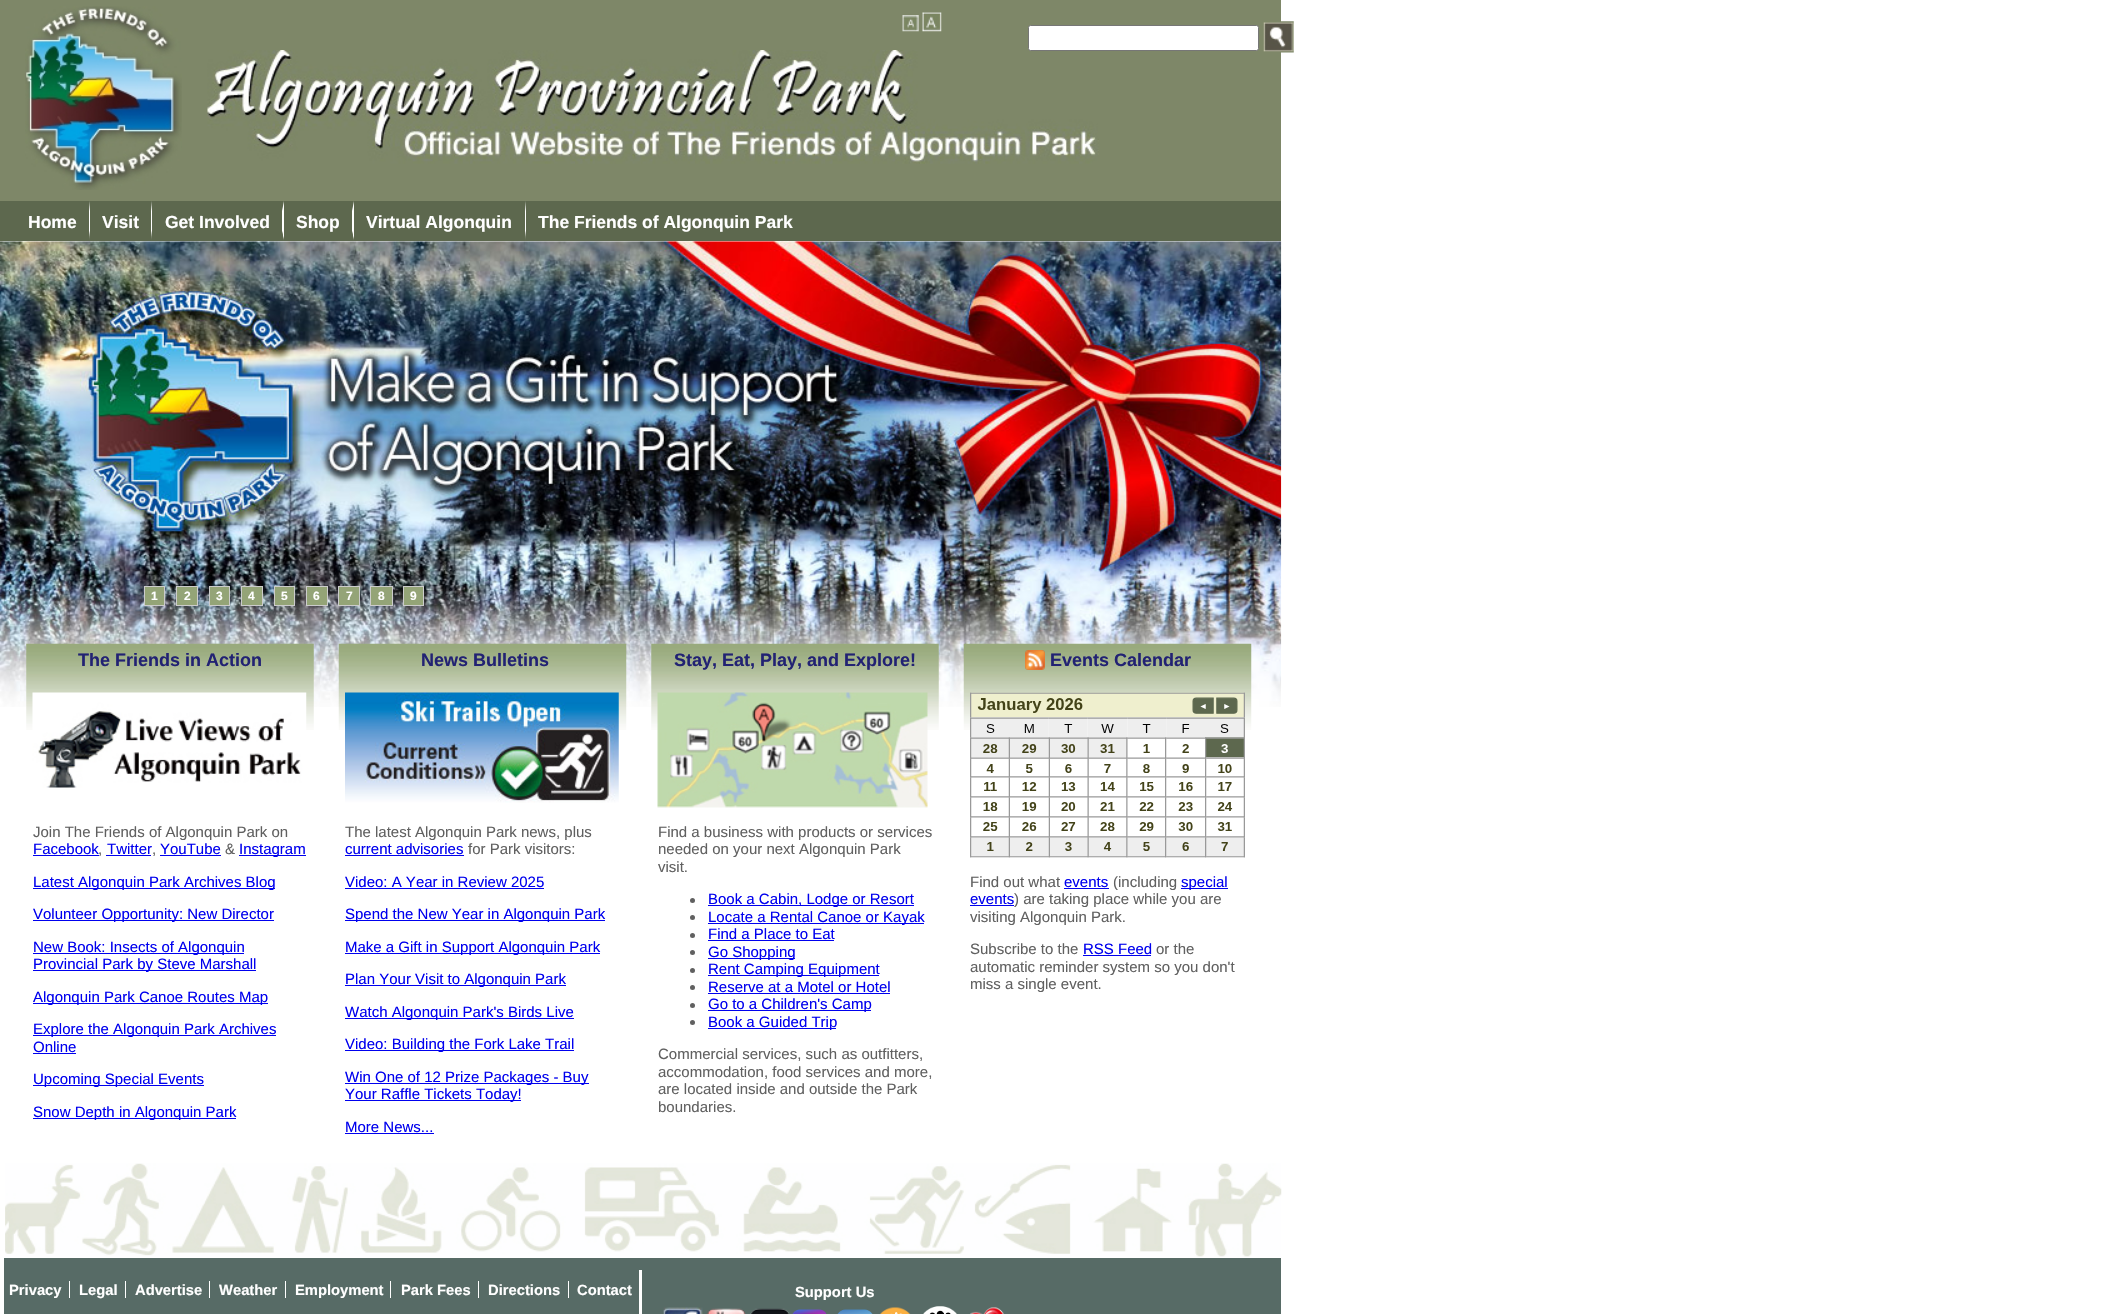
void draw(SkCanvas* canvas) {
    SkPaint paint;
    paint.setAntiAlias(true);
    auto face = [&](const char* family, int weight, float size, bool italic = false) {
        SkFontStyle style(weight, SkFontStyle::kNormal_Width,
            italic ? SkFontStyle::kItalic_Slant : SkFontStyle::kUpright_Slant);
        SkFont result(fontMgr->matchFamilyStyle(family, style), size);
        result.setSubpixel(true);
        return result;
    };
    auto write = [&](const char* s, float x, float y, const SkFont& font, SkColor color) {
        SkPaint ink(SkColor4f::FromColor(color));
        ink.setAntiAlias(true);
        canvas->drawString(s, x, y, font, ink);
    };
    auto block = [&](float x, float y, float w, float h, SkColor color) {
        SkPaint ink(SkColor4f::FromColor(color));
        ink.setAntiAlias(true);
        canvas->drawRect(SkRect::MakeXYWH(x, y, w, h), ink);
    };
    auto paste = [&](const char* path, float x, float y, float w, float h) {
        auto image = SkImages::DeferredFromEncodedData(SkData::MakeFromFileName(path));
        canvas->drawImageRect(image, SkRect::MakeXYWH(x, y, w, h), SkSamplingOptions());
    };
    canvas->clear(SK_ColorWHITE);
    block(0, 0, 1281, 201, SkColorSetRGB(126, 135, 104));
    paste("pic1.png", 25, 6, 157, 184);
    paste("pic2.png", 902, 15, 17, 17);
    paste("pic3.png", 922, 12, 20, 20);
    paste("pic5.png", 207, 50, 892, 114);
    paint.setColor(SK_ColorWHITE);
    canvas->drawRoundRect(SkRect::MakeXYWH(1028.5f, 25.5f, 230, 25), 2, 2, paint);
    paint.setStyle(SkPaint::kStroke_Style);
    paint.setStrokeWidth(1);
    paint.setColor(SkColorSetRGB(118, 118, 118));
    canvas->drawRoundRect(SkRect::MakeXYWH(1028.5f, 25.5f, 230, 25), 2, 2, paint);
    paste("pic4.png", 1263, 21, 31, 32);
    block(0, 201, 1281, 40, SkColorSetRGB(93, 104, 78));
    auto kFont1 = face("Liberation Sans", 700, 17.5f);
    write("Home", 28, 228, kFont1, SK_ColorWHITE);
    paint.setStyle(SkPaint::kFill_Style);
    paint.setColor(SK_ColorWHITE);
    canvas->drawPath(SkPathBuilder().moveTo(90, 201).lineTo(90, 241).lineTo(89, 231).lineTo(89, 211).close().detach(), paint);
    paint.setColor(SkColorSetRGB(93, 104, 78));
    canvas->drawPath(SkPathBuilder().moveTo(90, 241).lineTo(15, 241).lineTo(15, 231).lineTo(89, 231).close().detach(), paint);
    write("Visit", 102, 228, kFont1, SK_ColorWHITE);
    paint.setColor(SK_ColorWHITE);
    canvas->drawPath(SkPathBuilder().moveTo(152, 201).lineTo(152, 241).lineTo(151, 231).lineTo(151, 211).close().detach(), paint);
    paint.setColor(SkColorSetRGB(93, 104, 78));
    canvas->drawPath(SkPathBuilder().moveTo(152, 241).lineTo(90, 241).lineTo(90, 231).lineTo(151, 231).close().detach(), paint);
    write("Get Involved", 165, 228, kFont1, SK_ColorWHITE);
    paint.setColor(SK_ColorWHITE);
    canvas->drawPath(SkPathBuilder().moveTo(284, 201).lineTo(284, 241).lineTo(282, 231).lineTo(282, 211).close().detach(), paint);
    paint.setColor(SkColorSetRGB(93, 104, 78));
    canvas->drawPath(SkPathBuilder().moveTo(284, 241).lineTo(152, 241).lineTo(152, 231).lineTo(282, 231).close().detach(), paint);
    paint.setColor(SK_ColorWHITE);
    canvas->drawPath(SkPathBuilder().moveTo(354, 201).lineTo(354, 241).lineTo(352, 231).lineTo(352, 211).close().detach(), paint);
    paint.setColor(SkColorSetRGB(93, 104, 78));
    canvas->drawPath(SkPathBuilder().moveTo(354, 241).lineTo(284, 241).lineTo(284, 231).lineTo(352, 231).close().detach(), paint);
    write("Shop", 296, 228, kFont1, SK_ColorWHITE);
    paint.setColor(SK_ColorWHITE);
    canvas->drawPath(SkPathBuilder().moveTo(526, 201).lineTo(526, 241).lineTo(525, 231).lineTo(525, 211).close().detach(), paint);
    paint.setColor(SkColorSetRGB(93, 104, 78));
    canvas->drawPath(SkPathBuilder().moveTo(526, 241).lineTo(354, 241).lineTo(354, 231).lineTo(525, 231).close().detach(), paint);
    write("Virtual Algonquin", 366, 228, kFont1, SK_ColorWHITE);
    write("The Friends of Algonquin Park", 538, 228, kFont1, SK_ColorWHITE);
    paste("pic6.png", 0, 241, 1282, 466);
    paint.setColor(SkColorSetRGB(148, 164, 119));
    canvas->drawRect(SkRect::MakeXYWH(144.5f, 586.5f, 20, 19), paint);
    paint.setStyle(SkPaint::kStroke_Style);
    paint.setColor(SkColorSetRGB(204, 204, 204));
    canvas->drawRect(SkRect::MakeXYWH(144.5f, 586.5f, 20, 19), paint);
    auto kFont2 = face("Liberation Sans", 700, 12);
    write("1", 151, 600, kFont2, SK_ColorWHITE);
    paint.setStyle(SkPaint::kFill_Style);
    paint.setColor(SkColorSetRGB(148, 164, 119));
    canvas->drawRect(SkRect::MakeXYWH(176.5f, 586.5f, 21, 19), paint);
    paint.setStyle(SkPaint::kStroke_Style);
    paint.setColor(SkColorSetRGB(204, 204, 204));
    canvas->drawRect(SkRect::MakeXYWH(176.5f, 586.5f, 21, 19), paint);
    write("2", 184, 600, kFont2, SK_ColorWHITE);
    paint.setStyle(SkPaint::kFill_Style);
    paint.setColor(SkColorSetRGB(148, 164, 119));
    canvas->drawRect(SkRect::MakeXYWH(209.5f, 586.5f, 20, 19), paint);
    paint.setStyle(SkPaint::kStroke_Style);
    paint.setColor(SkColorSetRGB(204, 204, 204));
    canvas->drawRect(SkRect::MakeXYWH(209.5f, 586.5f, 20, 19), paint);
    write("3", 216, 600, kFont2, SK_ColorWHITE);
    paint.setStyle(SkPaint::kFill_Style);
    paint.setColor(SkColorSetRGB(148, 164, 119));
    canvas->drawRect(SkRect::MakeXYWH(241.5f, 586.5f, 21, 19), paint);
    paint.setStyle(SkPaint::kStroke_Style);
    paint.setColor(SkColorSetRGB(204, 204, 204));
    canvas->drawRect(SkRect::MakeXYWH(241.5f, 586.5f, 21, 19), paint);
    write("4", 248, 600, kFont2, SK_ColorWHITE);
    paint.setStyle(SkPaint::kFill_Style);
    paint.setColor(SkColorSetRGB(148, 164, 119));
    canvas->drawRect(SkRect::MakeXYWH(274.5f, 586.5f, 20, 19), paint);
    paint.setStyle(SkPaint::kStroke_Style);
    paint.setColor(SkColorSetRGB(204, 204, 204));
    canvas->drawRect(SkRect::MakeXYWH(274.5f, 586.5f, 20, 19), paint);
    write("5", 281, 600, kFont2, SK_ColorWHITE);
    paint.setStyle(SkPaint::kFill_Style);
    paint.setColor(SkColorSetRGB(148, 164, 119));
    canvas->drawRect(SkRect::MakeXYWH(306.5f, 586.5f, 21, 19), paint);
    paint.setStyle(SkPaint::kStroke_Style);
    paint.setColor(SkColorSetRGB(204, 204, 204));
    canvas->drawRect(SkRect::MakeXYWH(306.5f, 586.5f, 21, 19), paint);
    write("6", 313, 600, kFont2, SK_ColorWHITE);
    paint.setStyle(SkPaint::kFill_Style);
    paint.setColor(SkColorSetRGB(148, 164, 119));
    canvas->drawRect(SkRect::MakeXYWH(338.5f, 586.5f, 21, 19), paint);
    paint.setStyle(SkPaint::kStroke_Style);
    paint.setColor(SkColorSetRGB(204, 204, 204));
    canvas->drawRect(SkRect::MakeXYWH(338.5f, 586.5f, 21, 19), paint);
    write("7", 346, 600, kFont2, SK_ColorWHITE);
    paint.setStyle(SkPaint::kFill_Style);
    paint.setColor(SkColorSetRGB(148, 164, 119));
    canvas->drawRect(SkRect::MakeXYWH(370.5f, 586.5f, 22, 19), paint);
    paint.setStyle(SkPaint::kStroke_Style);
    paint.setColor(SkColorSetRGB(204, 204, 204));
    canvas->drawRect(SkRect::MakeXYWH(370.5f, 586.5f, 22, 19), paint);
    write("8", 378, 600, kFont2, SK_ColorWHITE);
    paint.setStyle(SkPaint::kFill_Style);
    paint.setColor(SkColorSetRGB(148, 164, 119));
    canvas->drawRect(SkRect::MakeXYWH(403.5f, 586.5f, 20, 19), paint);
    paint.setStyle(SkPaint::kStroke_Style);
    paint.setColor(SkColorSetRGB(204, 204, 204));
    canvas->drawRect(SkRect::MakeXYWH(403.5f, 586.5f, 20, 19), paint);
    write("9", 410, 600, kFont2, SK_ColorWHITE);
    paste("pic7.png", 26, 643, 288, 87);
    auto kFont3 = face("Liberation Sans", 700, 18);
    write("The Friends in Action", 78, 666, kFont3, SkColorSetRGB(34, 34, 115));
    paste("pic8.png", 32, 692, 275, 96);
    auto kFont4 = face("Liberation Sans", 400, 15);
    write("Join The Friends of Algonquin Park on", 33, 837, kFont4, SkColorSetRGB(96, 96, 96));
    write("Facebook", 33, 854, kFont4, SkColorSetRGB(0, 0, 238));
    block(33, 855, 66, 1, SkColorSetRGB(0, 0, 238));
    write(",", 98, 854, kFont4, SkColorSetRGB(96, 96, 96));
    write("Twitter", 107, 854, kFont4, SkColorSetRGB(0, 0, 238));
    block(106, 855, 45, 1, SkColorSetRGB(0, 0, 238));
    write(",", 152, 854, kFont4, SkColorSetRGB(96, 96, 96));
    write("YouTube", 160, 854, kFont4, SkColorSetRGB(0, 0, 238));
    block(160, 855, 61, 1, SkColorSetRGB(0, 0, 238));
    write("&", 225, 854, kFont4, SkColorSetRGB(96, 96, 96));
    block(239, 855, 67, 1, SkColorSetRGB(0, 0, 238));
    write("Instagram", 239, 854, kFont4, SkColorSetRGB(0, 0, 238));
    block(33, 888, 242, 1, SkColorSetRGB(0, 0, 238));
    write("Latest Algonquin Park Archives Blog", 33, 887, kFont4, SkColorSetRGB(0, 0, 238));
    block(33, 920, 241, 1, SkColorSetRGB(0, 0, 238));
    write("Volunteer Opportunity: New Director", 33, 919, kFont4, SkColorSetRGB(0, 0, 238));
    block(33, 953, 211, 1, SkColorSetRGB(0, 0, 238));
    write("New Book: Insects of Algonquin", 33, 952, kFont4, SkColorSetRGB(0, 0, 238));
    block(33, 970, 223, 1, SkColorSetRGB(0, 0, 238));
    write("Provincial Park by Steve Marshall", 33, 969, kFont4, SkColorSetRGB(0, 0, 238));
    block(33, 1003, 235, 1, SkColorSetRGB(0, 0, 238));
    write("Algonquin Park Canoe Routes Map", 33, 1002, kFont4, SkColorSetRGB(0, 0, 238));
    block(33, 1035, 243, 1, SkColorSetRGB(0, 0, 238));
    write("Explore the Algonquin Park Archives", 33, 1034, kFont4, SkColorSetRGB(0, 0, 238));
    write("Online", 33, 1052, kFont4, SkColorSetRGB(0, 0, 238));
    block(33, 1053, 43, 1, SkColorSetRGB(0, 0, 238));
    block(33, 1085, 171, 1, SkColorSetRGB(0, 0, 238));
    write("Upcoming Special Events", 33, 1084, kFont4, SkColorSetRGB(0, 0, 238));
    block(33, 1118, 203, 1, SkColorSetRGB(0, 0, 238));
    write("Snow Depth in Algonquin Park", 33, 1117, kFont4, SkColorSetRGB(0, 0, 238));
    paste("pic9.png", 338, 643, 289, 87);
    write("News Bulletins", 421, 666, kFont3, SkColorSetRGB(34, 34, 115));
    paste("pic10.png", 345, 692, 274, 111);
    write("The latest Algonquin Park news, plus", 345, 837, kFont4, SkColorSetRGB(96, 96, 96));
    write("current advisories", 345, 854, kFont4, SkColorSetRGB(0, 0, 238));
    block(345, 855, 119, 1, SkColorSetRGB(0, 0, 238));
    write("for Park visitors:", 468, 854, kFont4, SkColorSetRGB(96, 96, 96));
    write("Video: A Year in Review 2025", 345, 887, kFont4, SkColorSetRGB(0, 0, 238));
    block(345, 888, 199, 1, SkColorSetRGB(0, 0, 238));
    block(345, 920, 260, 1, SkColorSetRGB(0, 0, 238));
    write("Spend the New Year in Algonquin Park", 345, 919, kFont4, SkColorSetRGB(0, 0, 238));
    block(345, 953, 255, 1, SkColorSetRGB(0, 0, 238));
    write("Make a Gift in Support Algonquin Park", 345, 952, kFont4, SkColorSetRGB(0, 0, 238));
    block(345, 985, 221, 1, SkColorSetRGB(0, 0, 238));
    write("Plan Your Visit to Algonquin Park", 345, 984, kFont4, SkColorSetRGB(0, 0, 238));
    block(345, 1018, 229, 1, SkColorSetRGB(0, 0, 238));
    write("Watch Algonquin Park's Birds Live", 345, 1017, kFont4, SkColorSetRGB(0, 0, 238));
    block(345, 1050, 229, 1, SkColorSetRGB(0, 0, 238));
    write("Video: Building the Fork Lake Trail", 345, 1049, kFont4, SkColorSetRGB(0, 0, 238));
    block(345, 1083, 244, 1, SkColorSetRGB(0, 0, 238));
    write("Win One of 12 Prize Packages - Buy", 345, 1082, kFont4, SkColorSetRGB(0, 0, 238));
    block(345, 1100, 176, 1, SkColorSetRGB(0, 0, 238));
    write("Your Raffle Tickets Today!", 345, 1099, kFont4, SkColorSetRGB(0, 0, 238));
    write("More News...", 345, 1132, kFont4, SkColorSetRGB(0, 0, 238));
    block(345, 1133, 89, 1, SkColorSetRGB(0, 0, 238));
    paste("pic11.png", 651, 643, 288, 87);
    write("Stay, Eat, Play, and Explore!", 674, 666, kFont3, SkColorSetRGB(34, 34, 115));
    paste("pic12.png", 657, 692, 271, 116);
    write("Find a business with products or services", 658, 837, kFont4, SkColorSetRGB(96, 96, 96));
    write("needed on your next Algonquin Park", 658, 854, kFont4, SkColorSetRGB(96, 96, 96));
    write("visit.", 658, 872, kFont4, SkColorSetRGB(96, 96, 96));
    paint.setStyle(SkPaint::kFill_Style);
    paint.setColor(SkColorSetRGB(96, 96, 96));
    canvas->drawCircle(692.5f, 900.5f, 2.5f, paint);
    block(708, 905, 206, 1, SkColorSetRGB(0, 0, 238));
    write("Book a Cabin, Lodge or Resort", 708, 904, kFont4, SkColorSetRGB(0, 0, 238));
    canvas->drawCircle(692.5f, 917.5f, 2.5f, paint);
    block(708, 923, 216, 1, SkColorSetRGB(0, 0, 238));
    write("Locate a Rental Canoe or Kayak", 708, 922, kFont4, SkColorSetRGB(0, 0, 238));
    canvas->drawCircle(692.5f, 935.5f, 2.5f, paint);
    write("Find a Place to Eat", 708, 939, kFont4, SkColorSetRGB(0, 0, 238));
    block(708, 940, 126, 1, SkColorSetRGB(0, 0, 238));
    canvas->drawCircle(692.5f, 952.5f, 2.5f, paint);
    block(708, 958, 87, 1, SkColorSetRGB(0, 0, 238));
    write("Go Shopping", 708, 957, kFont4, SkColorSetRGB(0, 0, 238));
    canvas->drawCircle(692.5f, 970.5f, 2.5f, paint);
    block(708, 975, 171, 1, SkColorSetRGB(0, 0, 238));
    write("Rent Camping Equipment", 708, 974, kFont4, SkColorSetRGB(0, 0, 238));
    canvas->drawCircle(692.5f, 987.5f, 2.5f, paint);
    write("Reserve at a Motel or Hotel", 708, 992, kFont4, SkColorSetRGB(0, 0, 238));
    block(708, 993, 182, 1, SkColorSetRGB(0, 0, 238));
    canvas->drawCircle(692.5f, 1005.5f, 2.5f, paint);
    block(708, 1010, 163, 1, SkColorSetRGB(0, 0, 238));
    write("Go to a Children's Camp", 708, 1009, kFont4, SkColorSetRGB(0, 0, 238));
    canvas->drawCircle(692.5f, 1022.5f, 2.5f, paint);
    block(708, 1028, 128, 1, SkColorSetRGB(0, 0, 238));
    write("Book a Guided Trip", 708, 1027, kFont4, SkColorSetRGB(0, 0, 238));
    write("Commercial services, such as outfitters,", 658, 1059, kFont4, SkColorSetRGB(96, 96, 96));
    write("accommodation, food services and more,", 658, 1077, kFont4, SkColorSetRGB(96, 96, 96));
    write("are located inside and outside the Park", 658, 1094, kFont4, SkColorSetRGB(96, 96, 96));
    write("boundaries.", 658, 1112, kFont4, SkColorSetRGB(96, 96, 96));
    paste("pic13.png", 963, 643, 289, 87);
    paste("pic14.png", 1025, 650, 20, 20);
    write("Events Calendar", 1050, 666, kFont3, SkColorSetRGB(34, 34, 115));
    paste("pic15.png", 970, 692, 275, 166);
    write("Find out what", 970, 887, kFont4, SkColorSetRGB(96, 96, 96));
    write("events", 1064, 887, kFont4, SkColorSetRGB(0, 0, 238));
    block(1064, 888, 45, 1, SkColorSetRGB(0, 0, 238));
    write("(including", 1113, 887, kFont4, SkColorSetRGB(96, 96, 96));
    block(1181, 888, 47, 1, SkColorSetRGB(0, 0, 238));
    write("special", 1181, 887, kFont4, SkColorSetRGB(0, 0, 238));
    write("events", 970, 904, kFont4, SkColorSetRGB(0, 0, 238));
    block(970, 905, 44, 1, SkColorSetRGB(0, 0, 238));
    write(") are taking place while you are", 1014, 904, kFont4, SkColorSetRGB(96, 96, 96));
    write("visiting Algonquin Park.", 970, 922, kFont4, SkColorSetRGB(96, 96, 96));
    write("Subscribe to the", 970, 954, kFont4, SkColorSetRGB(96, 96, 96));
    write("RSS Feed", 1083, 954, kFont4, SkColorSetRGB(0, 0, 238));
    block(1083, 955, 68, 1, SkColorSetRGB(0, 0, 238));
    write("or the", 1156, 954, kFont4, SkColorSetRGB(96, 96, 96));
    write("automatic reminder system so you don't", 970, 972, kFont4, SkColorSetRGB(96, 96, 96));
    write("miss a single event.", 970, 989, kFont4, SkColorSetRGB(96, 96, 96));
    paste("pic16.png", 5, 1163, 1277, 94);
    block(4, 1258, 1277, 56, SkColorSetRGB(87, 107, 102));
    auto kFont5 = face("Liberation Sans", 700, 14.75f);
    write("Privacy", 9, 1295, kFont5, SK_ColorWHITE);
    block(69, 1281, 1, 17, SK_ColorWHITE);
    write("Legal", 79, 1295, kFont5, SK_ColorWHITE);
    block(125, 1281, 1, 17, SK_ColorWHITE);
    write("Advertise", 135, 1295, kFont5, SK_ColorWHITE);
    block(209, 1281, 1, 17, SK_ColorWHITE);
    write("Weather", 219, 1295, kFont5, SK_ColorWHITE);
    block(285, 1281, 1, 17, SK_ColorWHITE);
    write("Employment", 295, 1295, kFont5, SK_ColorWHITE);
    block(390, 1281, 1, 17, SK_ColorWHITE);
    write("Park Fees", 401, 1295, kFont5, SK_ColorWHITE);
    block(478, 1281, 1, 17, SK_ColorWHITE);
    write("Directions", 488, 1295, kFont5, SK_ColorWHITE);
    block(568, 1281, 1, 17, SK_ColorWHITE);
    write("Contact", 577, 1295, kFont5, SK_ColorWHITE);
    block(639, 1270, 3, 44, SK_ColorWHITE);
    write("Support Us", 795, 1297, kFont5, SK_ColorWHITE);
    paste("pic17.png", 663, 1307, 40, 7);
    paste("pic18.png", 707, 1308, 39, 6);
    paste("pic19.png", 750, 1308, 39, 6);
    paste("pic20.png", 792, 1309, 35, 5);
    paste("pic21.png", 837, 1309, 36, 5);
    paste("pic22.png", 880, 1307, 31, 7);
    paste("pic23.png", 923, 1306, 34, 8);
    paste("pic24.png", 970, 1307, 34, 7);
}
